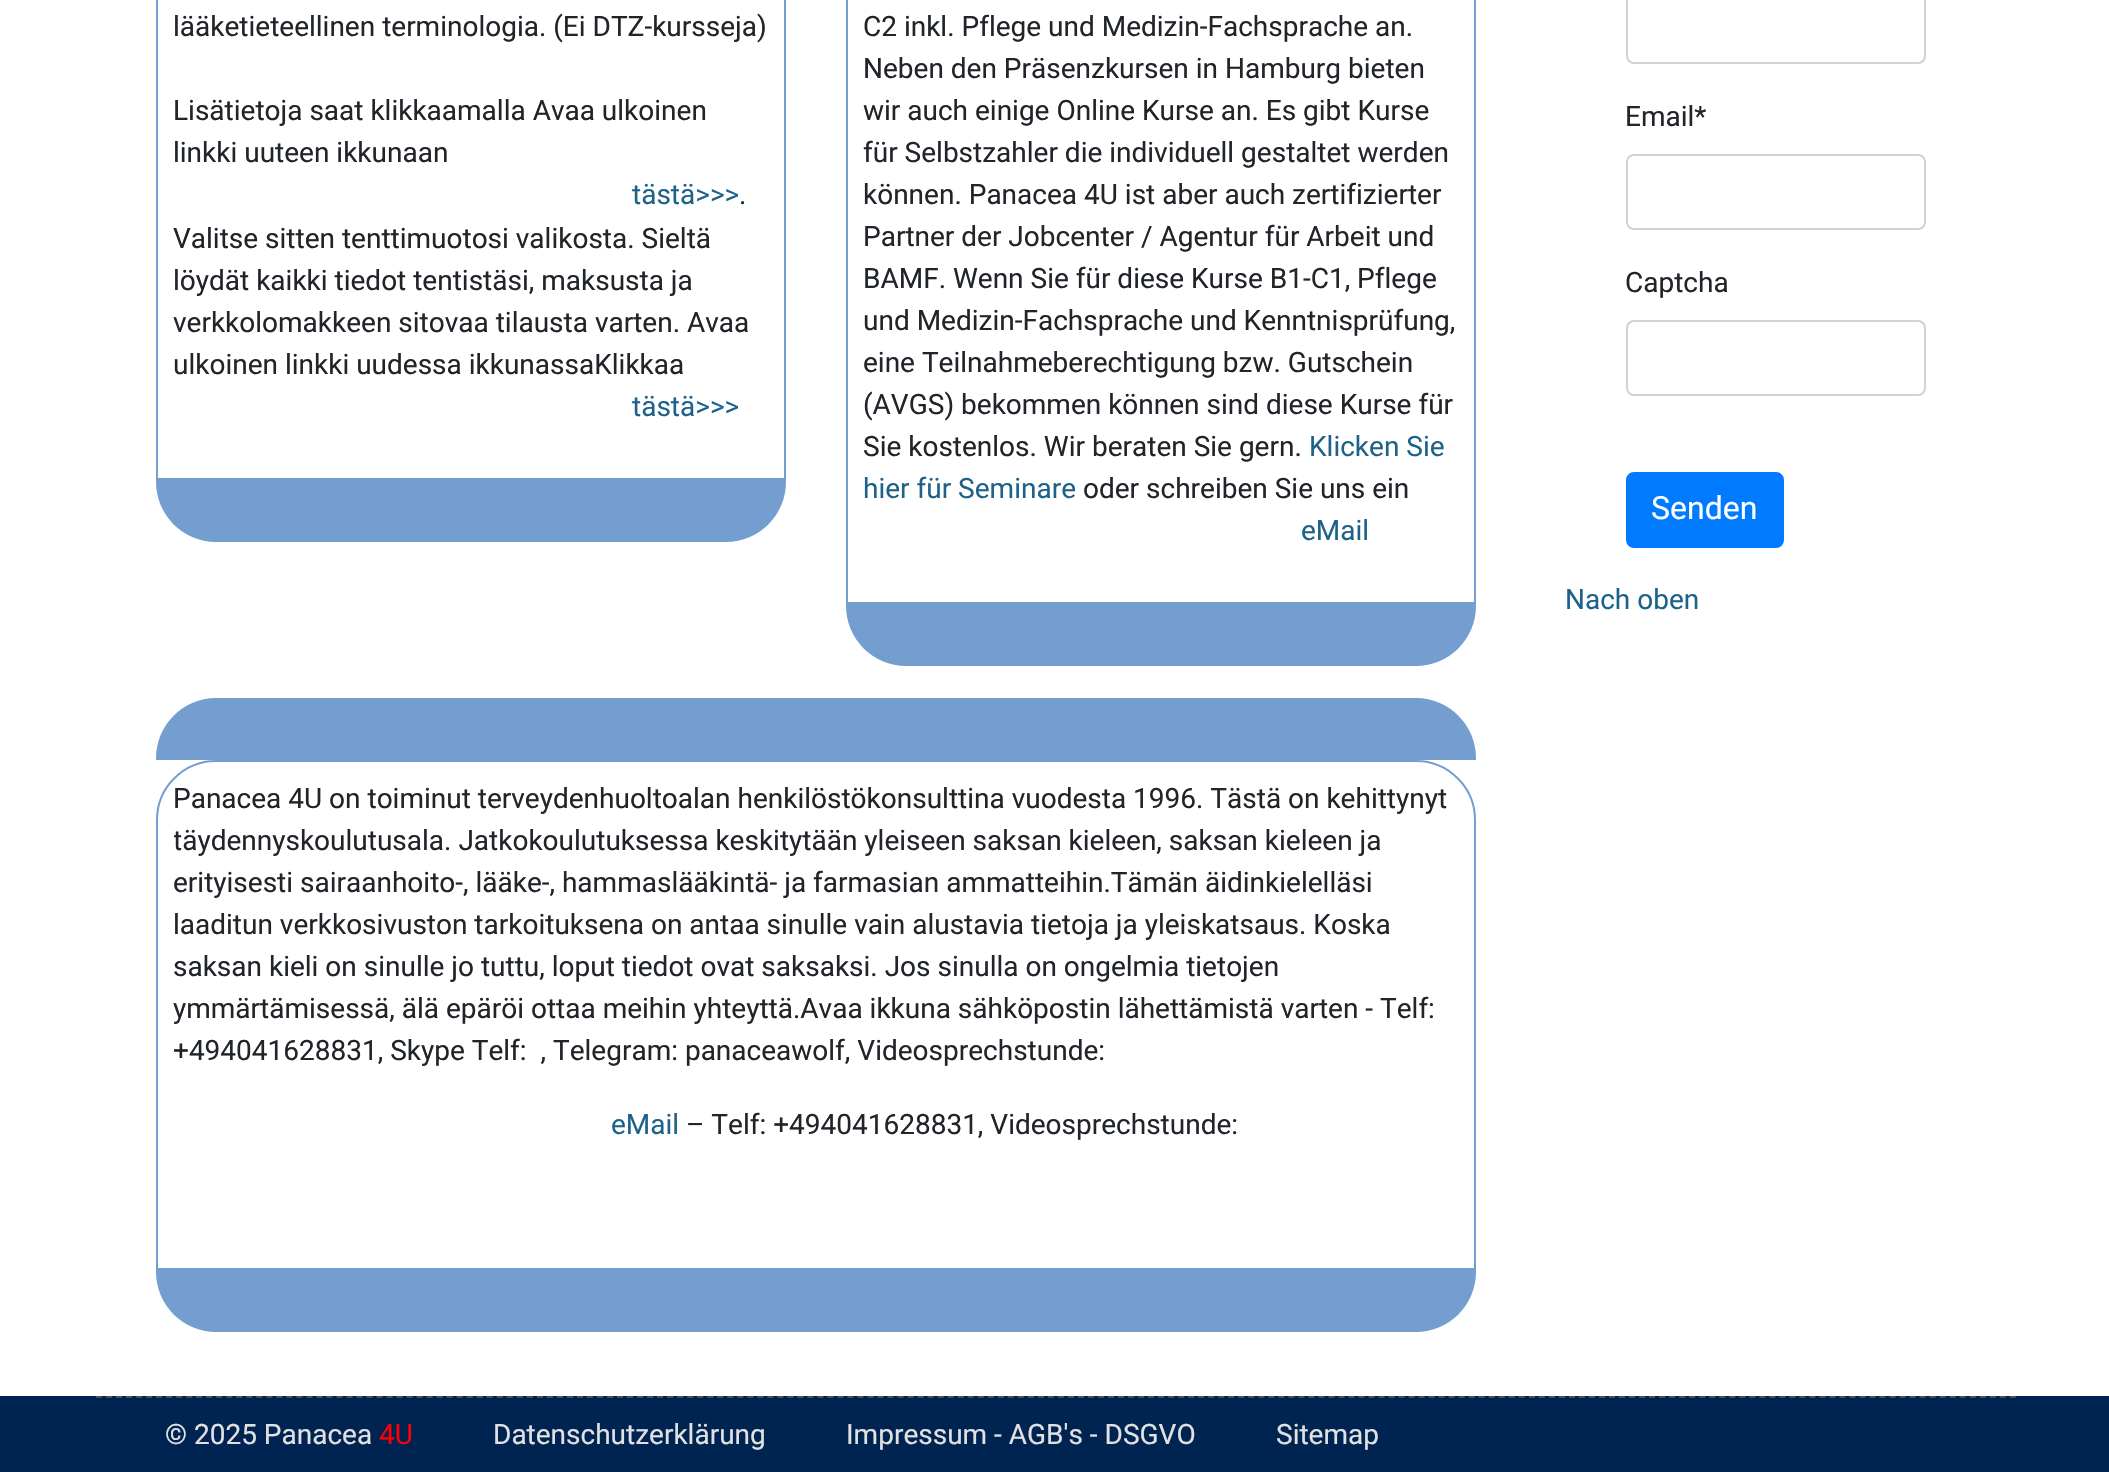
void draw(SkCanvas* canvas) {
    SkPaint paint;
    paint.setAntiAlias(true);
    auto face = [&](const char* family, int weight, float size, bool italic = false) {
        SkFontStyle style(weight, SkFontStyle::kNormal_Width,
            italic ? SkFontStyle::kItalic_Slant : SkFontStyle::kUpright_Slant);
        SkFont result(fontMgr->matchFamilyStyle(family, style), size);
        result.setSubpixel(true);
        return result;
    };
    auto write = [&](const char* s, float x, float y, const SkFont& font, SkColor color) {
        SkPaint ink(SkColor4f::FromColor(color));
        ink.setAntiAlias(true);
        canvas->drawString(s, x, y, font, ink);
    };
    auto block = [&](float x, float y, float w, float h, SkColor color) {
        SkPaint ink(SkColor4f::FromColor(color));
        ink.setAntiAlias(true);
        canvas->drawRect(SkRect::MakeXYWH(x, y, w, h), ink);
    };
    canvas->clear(SK_ColorWHITE);
    paint.setStyle(SkPaint::kStroke_Style);
    paint.setStrokeWidth(2);
    paint.setColor(SkColorSetRGB(116, 158, 208));
    canvas->drawRect(SkRect::MakeXYWH(157, -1, 628, 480), paint);
    auto kFont1 = face("Roboto", 400, 28);
    write("lääketieteellinen terminologia. (Ei DTZ-kursseja)", 173, 36, kFont1, SkColorSetRGB(33, 37, 41));
    write("Lisätietoja saat klikkaamalla Avaa ulkoinen", 173, 120, kFont1, SkColorSetRGB(33, 37, 41));
    write("linkki uuteen ikkunaan", 173, 162, kFont1, SkColorSetRGB(33, 37, 41));
    write("tästä>>>", 632, 204, kFont1, SkColorSetRGB(30, 98, 137));
    write(".", 739, 204, kFont1, SkColorSetRGB(33, 37, 41));
    write("Valitse sitten tenttimuotosi valikosta. Sieltä", 173, 248, kFont1, SkColorSetRGB(33, 37, 41));
    write("löydät kaikki tiedot tentistäsi, maksusta ja", 173, 290, kFont1, SkColorSetRGB(33, 37, 41));
    write("verkkolomakkeen sitovaa tilausta varten. Avaa", 173, 332, kFont1, SkColorSetRGB(33, 37, 41));
    write("ulkoinen linkki uudessa ikkunassaKlikkaa", 173, 374, kFont1, SkColorSetRGB(33, 37, 41));
    write("tästä>>>", 632, 416, kFont1, SkColorSetRGB(30, 98, 137));
    paint.setStyle(SkPaint::kFill_Style);
    canvas->drawPath(SkPathBuilder().moveTo(156, 480).lineTo(786, 480).lineTo(786, 482).cubicTo(786, 515, 759, 542, 726, 542).lineTo(216, 542).cubicTo(183, 542, 156, 515, 156, 482).close().detach(), paint);
    paint.setStyle(SkPaint::kStroke_Style);
    canvas->drawRect(SkRect::MakeXYWH(847, -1, 628, 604), paint);
    write("C2 inkl. Pflege und Medizin-Fachsprache an.", 863, 36, kFont1, SkColorSetRGB(33, 37, 41));
    write("Neben den Präsenzkursen in Hamburg bieten", 863, 78, kFont1, SkColorSetRGB(33, 37, 41));
    write("wir auch einige Online Kurse an. Es gibt Kurse", 863, 120, kFont1, SkColorSetRGB(33, 37, 41));
    write("für Selbstzahler die individuell gestaltet werden", 863, 162, kFont1, SkColorSetRGB(33, 37, 41));
    write("können. Panacea 4U ist aber auch zertifizierter", 863, 204, kFont1, SkColorSetRGB(33, 37, 41));
    write("Partner der Jobcenter / Agentur für Arbeit und", 863, 246, kFont1, SkColorSetRGB(33, 37, 41));
    write("BAMF. Wenn Sie für diese Kurse B1-C1, Pflege", 863, 288, kFont1, SkColorSetRGB(33, 37, 41));
    write("und Medizin-Fachsprache und Kenntnisprüfung,", 863, 330, kFont1, SkColorSetRGB(33, 37, 41));
    write("eine Teilnahmeberechtigung bzw. Gutschein", 863, 372, kFont1, SkColorSetRGB(33, 37, 41));
    write("(AVGS) bekommen können sind diese Kurse für", 863, 414, kFont1, SkColorSetRGB(33, 37, 41));
    write("Sie kostenlos. Wir beraten Sie gern.", 863, 456, kFont1, SkColorSetRGB(33, 37, 41));
    write("Klicken Sie", 1309, 456, kFont1, SkColorSetRGB(30, 98, 137));
    write("hier für Seminare", 863, 498, kFont1, SkColorSetRGB(30, 98, 137));
    write("oder schreiben Sie uns ein", 1083, 498, kFont1, SkColorSetRGB(33, 37, 41));
    write("eMail", 1301, 540, kFont1, SkColorSetRGB(30, 98, 137));
    paint.setStyle(SkPaint::kFill_Style);
    canvas->drawPath(SkPathBuilder().moveTo(846, 604).lineTo(1476, 604).lineTo(1476, 606).cubicTo(1476, 639, 1449, 666, 1416, 666).lineTo(906, 666).cubicTo(873, 666, 846, 639, 846, 606).close().detach(), paint);
    canvas->drawPath(SkPathBuilder().moveTo(216, 698).lineTo(1416, 698).cubicTo(1449, 698, 1476, 725, 1476, 758).lineTo(1476, 760).lineTo(156, 760).lineTo(156, 758).cubicTo(156, 725, 183, 698, 216, 698).close().detach(), paint);
    paint.setStyle(SkPaint::kStroke_Style);
    canvas->drawPath(SkPathBuilder().moveTo(216, 761).lineTo(1416, 761).cubicTo(1448.5f, 761, 1475, 787.5f, 1475, 820).lineTo(1475, 1269).lineTo(157, 1269).lineTo(157, 820).cubicTo(157, 787.5f, 183.5f, 761, 216, 761).close().detach(), paint);
    write("Panacea 4U on toiminut terveydenhuoltoalan henkilöstökonsulttina vuodesta 1996. Tästä on kehittynyt", 173, 808, kFont1, SkColorSetRGB(33, 37, 41));
    canvas->save();
    canvas->clipRect(SkRect::MakeXYWH(174, 778, 1284, 474));
    write("täydennyskoulutusala. Jatkokoulutuksessa keskitytään yleiseen saksan kieleen, saksan kieleen ja", 173, 850, kFont1, SkColorSetRGB(33, 37, 41));
    canvas->restore();
    write("erityisesti sairaanhoito-, lääke-, hammaslääkintä- ja farmasian ammatteihin.Tämän äidinkielelläsi", 173, 892, kFont1, SkColorSetRGB(33, 37, 41));
    write("laaditun verkkosivuston tarkoituksena on antaa sinulle vain alustavia tietoja ja yleiskatsaus. Koska", 173, 934, kFont1, SkColorSetRGB(33, 37, 41));
    write("saksan kieli on sinulle jo tuttu, loput tiedot ovat saksaksi. Jos sinulla on ongelmia tietojen", 173, 976, kFont1, SkColorSetRGB(33, 37, 41));
    write("ymmärtämisessä, älä epäröi ottaa meihin yhteyttä.Avaa ikkuna sähköpostin lähettämistä varten - Telf:", 173, 1018, kFont1, SkColorSetRGB(33, 37, 41));
    write("+494041628831, Skype Telf:  , Telegram: panaceawolf, Videosprechstunde:", 173, 1060, kFont1, SkColorSetRGB(33, 37, 41));
    write("eMail", 611, 1134, kFont1, SkColorSetRGB(30, 98, 137));
    write("– Telf: +494041628831, Videosprechstunde:", 686, 1134, kFont1, SkColorSetRGB(33, 37, 41));
    paint.setStyle(SkPaint::kFill_Style);
    canvas->drawPath(SkPathBuilder().moveTo(156, 1270).lineTo(1476, 1270).lineTo(1476, 1272).cubicTo(1476, 1305, 1449, 1332, 1416, 1332).lineTo(216, 1332).cubicTo(183, 1332, 156, 1305, 156, 1272).close().detach(), paint);
    paint.setStyle(SkPaint::kStroke_Style);
    paint.setColor(SkColorSetRGB(206, 212, 218));
    canvas->drawRoundRect(SkRect::MakeXYWH(1627, -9, 298, 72), 7, 7, paint);
    write("Email*", 1625, 126, kFont1, SkColorSetRGB(33, 37, 41));
    canvas->drawRoundRect(SkRect::MakeXYWH(1627, 155, 298, 74), 7, 7, paint);
    write("Captcha", 1625, 292, kFont1, SkColorSetRGB(33, 37, 41));
    canvas->drawRoundRect(SkRect::MakeXYWH(1627, 321, 298, 74), 7, 7, paint);
    paint.setStyle(SkPaint::kFill_Style);
    paint.setColor(SkColorSetRGB(0, 123, 255));
    canvas->drawRoundRect(SkRect::MakeXYWH(1627, 473, 156, 74), 7, 7, paint);
    paint.setStyle(SkPaint::kStroke_Style);
    canvas->drawRoundRect(SkRect::MakeXYWH(1627, 473, 156, 74), 7, 7, paint);
    auto kFont2 = face("Roboto", 400, 32);
    write("Senden", 1651, 519, kFont2, SK_ColorWHITE);
    write("Nach oben", 1565, 609, kFont1, SkColorSetRGB(30, 98, 137));
    block(0, 1396, 2109, 76, SkColorSetRGB(0, 36, 82));
    paint.setColor(SkColorSetRGB(78, 78, 78));
    paint.setPathEffect(SkDashPathEffect::Make({{6, 4.02f}}, 0));
    canvas->drawPath(SkPathBuilder().moveTo(96, 1397).lineTo(2016, 1397).detach(), paint);
    paint.setPathEffect(nullptr);
    write("© 2025 Panacea", 165, 1444, kFont1, SkColorSetRGB(225, 225, 225));
    write("4U", 379, 1444, kFont1, SkColorSetRGB(255, 0, 0));
    write("Datenschutzerklärung", 493, 1444, kFont1, SkColorSetRGB(225, 225, 225));
    write("Impressum - AGB's - DSGVO", 846, 1444, kFont1, SkColorSetRGB(225, 225, 225));
    write("Sitemap", 1276, 1444, kFont1, SkColorSetRGB(225, 225, 225));
}
